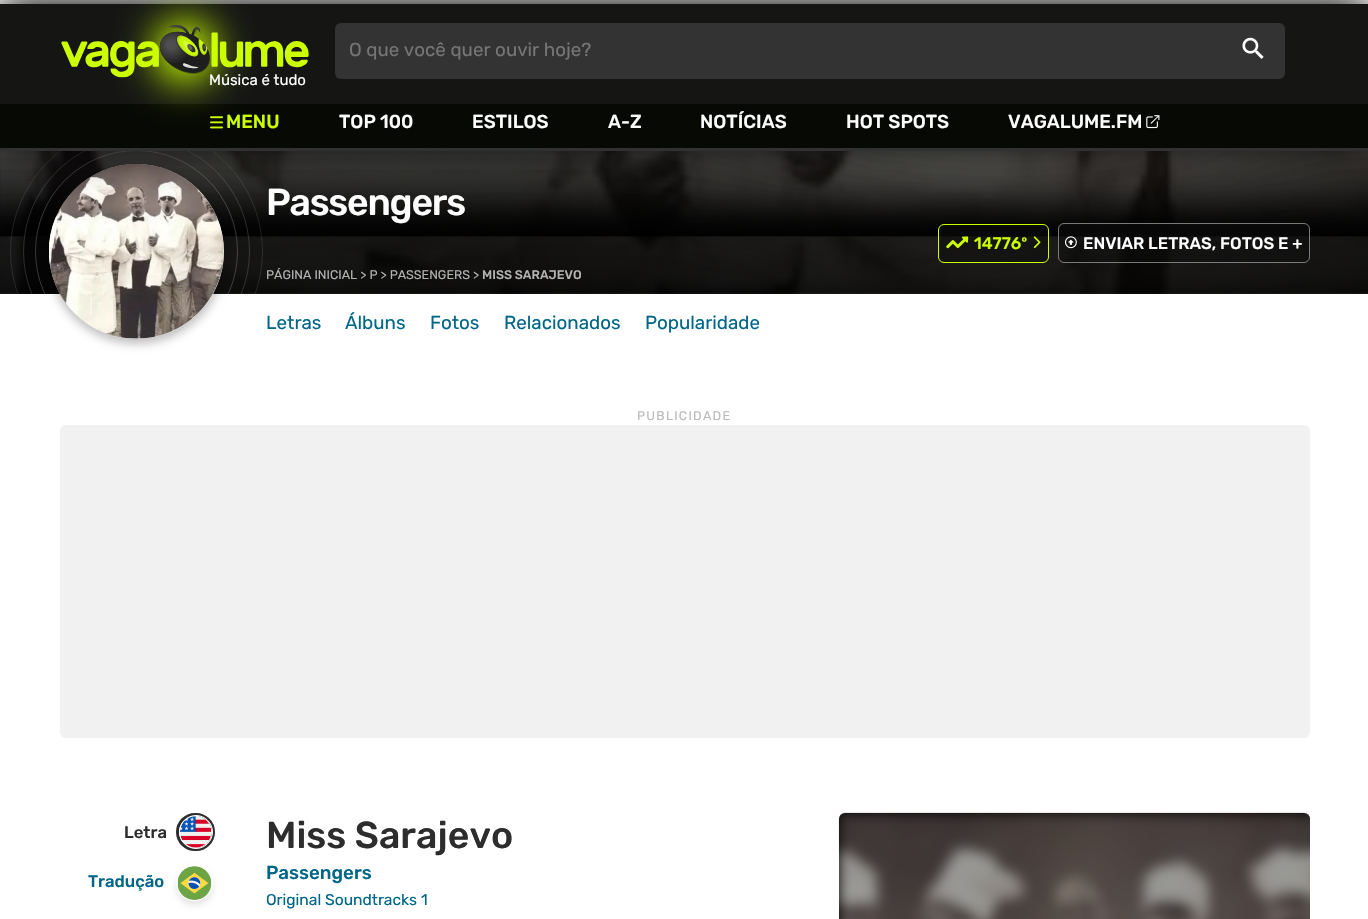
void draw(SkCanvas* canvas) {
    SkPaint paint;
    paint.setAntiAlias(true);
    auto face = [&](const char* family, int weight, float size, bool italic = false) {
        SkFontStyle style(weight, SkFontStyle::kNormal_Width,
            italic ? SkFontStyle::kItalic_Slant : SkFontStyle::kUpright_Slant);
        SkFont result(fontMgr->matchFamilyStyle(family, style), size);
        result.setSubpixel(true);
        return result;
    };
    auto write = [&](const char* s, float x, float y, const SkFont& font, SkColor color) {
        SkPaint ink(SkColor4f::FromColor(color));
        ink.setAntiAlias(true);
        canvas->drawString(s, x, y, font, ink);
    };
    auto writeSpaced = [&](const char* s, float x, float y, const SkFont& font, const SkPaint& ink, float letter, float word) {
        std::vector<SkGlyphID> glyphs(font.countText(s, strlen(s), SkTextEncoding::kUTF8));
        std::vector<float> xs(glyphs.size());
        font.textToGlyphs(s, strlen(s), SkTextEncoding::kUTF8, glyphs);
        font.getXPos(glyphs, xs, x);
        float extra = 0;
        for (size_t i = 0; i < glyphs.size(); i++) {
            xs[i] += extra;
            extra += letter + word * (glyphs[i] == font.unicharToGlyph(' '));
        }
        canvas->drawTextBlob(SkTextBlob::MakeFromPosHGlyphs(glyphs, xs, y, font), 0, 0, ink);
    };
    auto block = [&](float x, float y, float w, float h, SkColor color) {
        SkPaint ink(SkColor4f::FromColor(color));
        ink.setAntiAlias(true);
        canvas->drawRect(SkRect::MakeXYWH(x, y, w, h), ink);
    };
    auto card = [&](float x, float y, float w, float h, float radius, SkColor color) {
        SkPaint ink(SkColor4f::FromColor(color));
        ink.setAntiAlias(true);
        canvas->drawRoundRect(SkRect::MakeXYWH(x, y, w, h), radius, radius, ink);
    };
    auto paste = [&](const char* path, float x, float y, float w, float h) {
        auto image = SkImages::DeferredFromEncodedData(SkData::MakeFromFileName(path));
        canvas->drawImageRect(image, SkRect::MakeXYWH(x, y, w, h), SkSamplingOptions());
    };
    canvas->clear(SK_ColorWHITE);
    paste("pic5.png", 0, 151, 1368, 143);
    paste("pic7.png", 0, 151, 1368, 143);
    {
        const SkColor colors[] = {SkColorSetARGB(64, 0, 0, 0), SkColorSetARGB(191, 0, 0, 0)};
        const float stops[] = {0, 0.6f};
        const SkPoint ends[] = {{684, 150}, {684, 294}};
        paint.setShader(SkGradientShader::MakeLinear(ends, colors, stops, 2, SkTileMode::kClamp));
        paint.setAlpha(255);
    }
    canvas->drawRect(SkRect::MakeXYWH(0, 151, 1368, 143), paint);
    paint.setStyle(SkPaint::kStroke_Style);
    paint.setStrokeWidth(1);
    paint.setShader(nullptr);
    paint.setColor(SkColorSetARGB(51, 255, 255, 255));
    canvas->drawCircle(136.5f, 251.5f, 101, paint);
    paint.setColor(SkColorSetARGB(38, 255, 255, 255));
    canvas->drawCircle(136.5f, 251.5f, 113, paint);
    paint.setColor(SkColorSetARGB(26, 255, 255, 255));
    canvas->drawCircle(136.5f, 251.5f, 126, paint);
    paint.setStyle(SkPaint::kFill_Style);
    paint.setColor(SkColorSetARGB(64, 0, 0, 0));
    paint.setMaskFilter(SkMaskFilter::MakeBlur(kNormal_SkBlurStyle, 5));
    canvas->drawRoundRect(SkRect::MakeXYWH(48, 166, 177, 178), 88.5f, 88.5f, paint);
    paint.setMaskFilter(nullptr);
    paint.setColor(SkColorSetRGB(241, 241, 241));
    canvas->drawCircle(136.5f, 251.5f, 87.5f, paint);
    paste("pic6.png", 49, 164, 175, 175);
    paint.setColor(SK_ColorBLACK);
    paint.setMaskFilter(SkMaskFilter::MakeBlur(kNormal_SkBlurStyle, 19));
    canvas->drawRect(SkRect::MakeXYWH(0, 1, 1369, 147), paint);
    paint.setMaskFilter(nullptr);
    block(0, 104, 1368, 44, SkColorSetRGB(7, 9, 4));
    block(0, 148, 1368, 3, SkColorSetRGB(49, 49, 49));
    block(0, 4, 1368, 100, SkColorSetRGB(21, 22, 20));
    card(335, 23, 950, 56, 6, SkColorSetRGB(51, 51, 51));
    auto kFont1 = face("Rubik", 400, 18.75f);
    write("O que você quer ouvir hoje?", 349, 56, kFont1, SkColorSetRGB(117, 117, 117));
    paste("pic1.png", 1242, 37, 22, 22);
    paste("pic3.png", 210, 116, 13, 13);
    paint.setColor(SkColorSetRGB(204, 255, 0));
    paint.setMaskFilter(SkMaskFilter::MakeBlur(kNormal_SkBlurStyle, 19));
    canvas->drawRoundRect(SkRect::MakeXYWH(154, 20, 62, 63), 31, 31, paint);
    paint.setMaskFilter(nullptr);
    auto kFont2 = face("Rubik", 400, 15);
    write("Música é tudo", 209, 85, kFont2, SK_ColorWHITE);
    paste("pic2.png", 61, 25, 248, 53);
    auto kFont3 = face("Rubik", 500, 18.75f);
    write("MENU", 226, 128, kFont3, SkColorSetRGB(204, 255, 0));
    write("TOP 100", 339, 128, kFont3, SK_ColorWHITE);
    write("ESTILOS", 472, 128, kFont3, SK_ColorWHITE);
    write("A-Z", 608, 128, kFont3, SK_ColorWHITE);
    write("NOTÍCIAS", 700, 128, kFont3, SK_ColorWHITE);
    write("HOT SPOTS", 846, 128, kFont3, SK_ColorWHITE);
    write("VAGALUME.FM", 1008, 128, kFont3, SK_ColorWHITE);
    paste("pic4.png", 1146, 115, 14, 14);
    auto kFont4 = face("Rubik", 500, 37.5f);
    paint.setColor(SK_ColorWHITE);
    writeSpaced("Passengers", 266, 215, kFont4, paint, -1.25f, 0);
    paint.setColor(SkColorSetARGB(128, 11, 11, 11));
    canvas->drawRoundRect(SkRect::MakeXYWH(938.5f, 224.5f, 110, 38), 5.5f, 5.5f, paint);
    paint.setStyle(SkPaint::kStroke_Style);
    paint.setColor(SkColorSetRGB(204, 255, 0));
    canvas->drawRoundRect(SkRect::MakeXYWH(938.5f, 224.5f, 110, 38), 5.5f, 5.5f, paint);
    paste("pic8.png", 946, 236, 23, 13);
    auto kFont5 = face("Rubik", 500, 16.7f);
    write("14776º", 974, 249, kFont5, SkColorSetRGB(204, 255, 0));
    paste("pic9.png", 1033, 236, 8, 13);
    card(1058, 223, 252, 40, 6, SkColorSetARGB(128, 11, 11, 11));
    paint.setColor(SkColorSetARGB(204, 150, 150, 150));
    canvas->drawRoundRect(SkRect::MakeXYWH(1058.5f, 223.5f, 251, 39), 5.5f, 5.5f, paint);
    paste("pic10.png", 1065, 236, 12, 13);
    write("ENVIAR LETRAS, FOTOS E +", 1083, 249, kFont5, SK_ColorWHITE);
    auto kFont6 = face("Rubik", 400, 12.5f);
    write("PÁGINA INICIAL > P > PASSENGERS >", 266, 279, kFont6, SkColorSetRGB(179, 179, 179));
    auto kFont7 = face("Rubik", 500, 12.5f);
    write("MISS SARAJEVO", 482, 279, kFont7, SkColorSetRGB(179, 179, 179));
    write("Letra", 124, 838, kFont5, SkColorSetRGB(45, 45, 45));
    paint.setStrokeWidth(3);
    paint.setColor(SkColorSetRGB(45, 45, 45));
    canvas->drawRoundRect(SkRect::MakeXYWH(177.5f, 814.5f, 36, 35), 17.5f, 17.5f, paint);
    paste("pic11.png", 180, 816, 31, 32);
    paint.setStrokeWidth(1);
    paint.setColor(SK_ColorWHITE);
    canvas->drawCircle(196, 832, 16.5f, paint);
    write("Tradução", 88, 887, kFont5, SkColorSetRGB(0, 102, 136));
    paint.setStyle(SkPaint::kFill_Style);
    paint.setColor(SkColorSetARGB(26, 0, 0, 0));
    paint.setMaskFilter(SkMaskFilter::MakeBlur(kNormal_SkBlurStyle, 3));
    canvas->drawRoundRect(SkRect::MakeXYWH(176, 869, 37, 36), 18, 18, paint);
    paint.setMaskFilter(nullptr);
    paste("pic12.png", 178, 866, 33, 34);
    paint.setStyle(SkPaint::kStroke_Style);
    paint.setColor(SK_ColorWHITE);
    canvas->drawRoundRect(SkRect::MakeXYWH(176.5f, 865.5f, 36, 35), 17.5f, 17.5f, paint);
    write("Miss Sarajevo", 266, 848, kFont4, SkColorSetRGB(45, 45, 45));
    write("Passengers", 266, 879, kFont3, SkColorSetRGB(0, 102, 136));
    auto kFont8 = face("Rubik", 400, 15.6f);
    write("Original Soundtracks 1", 266, 905, kFont8, SkColorSetRGB(0, 102, 136));
    card(839, 813, 471, 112, 6, SK_ColorBLACK);
    paste("pic13.png", 838, 812, 472, 107);
    write("Letras", 266, 329, kFont1, SkColorSetRGB(0, 102, 136));
    write("Álbuns", 345, 329, kFont1, SkColorSetRGB(0, 102, 136));
    write("Fotos", 430, 329, kFont1, SkColorSetRGB(0, 102, 136));
    write("Relacionados", 504, 329, kFont1, SkColorSetRGB(0, 102, 136));
    write("Popularidade", 645, 329, kFont1, SkColorSetRGB(0, 102, 136));
    card(60, 425, 1250, 313, 6, SkColorSetRGB(241, 241, 241));
    paint.setStyle(SkPaint::kFill_Style);
    paint.setColor(SkColorSetRGB(187, 187, 187));
    writeSpaced("PUBLICIDADE", 637, 420, kFont6, paint, 1.25f, 0);
}
